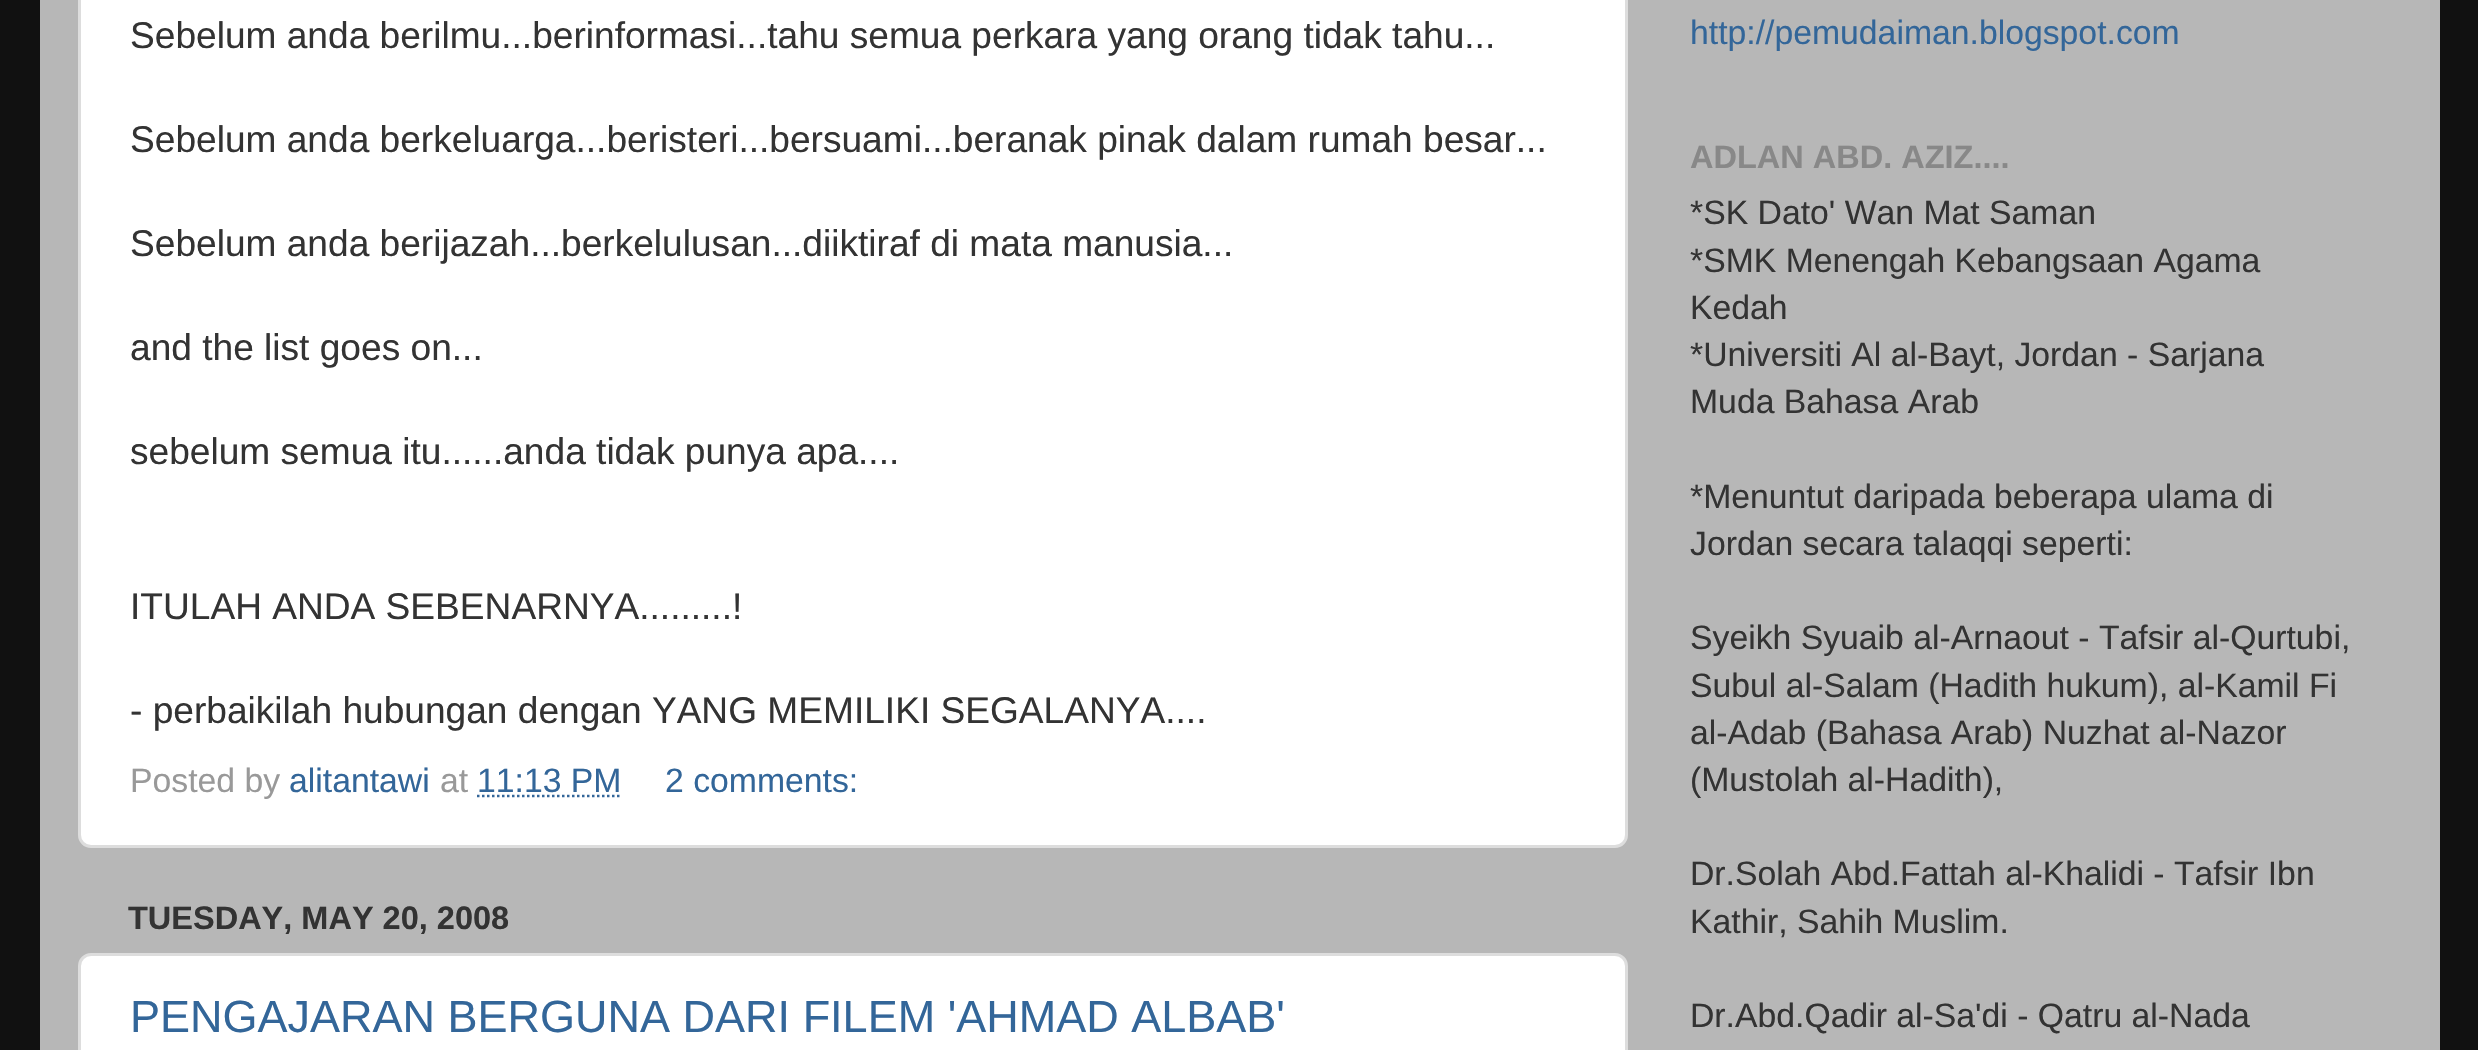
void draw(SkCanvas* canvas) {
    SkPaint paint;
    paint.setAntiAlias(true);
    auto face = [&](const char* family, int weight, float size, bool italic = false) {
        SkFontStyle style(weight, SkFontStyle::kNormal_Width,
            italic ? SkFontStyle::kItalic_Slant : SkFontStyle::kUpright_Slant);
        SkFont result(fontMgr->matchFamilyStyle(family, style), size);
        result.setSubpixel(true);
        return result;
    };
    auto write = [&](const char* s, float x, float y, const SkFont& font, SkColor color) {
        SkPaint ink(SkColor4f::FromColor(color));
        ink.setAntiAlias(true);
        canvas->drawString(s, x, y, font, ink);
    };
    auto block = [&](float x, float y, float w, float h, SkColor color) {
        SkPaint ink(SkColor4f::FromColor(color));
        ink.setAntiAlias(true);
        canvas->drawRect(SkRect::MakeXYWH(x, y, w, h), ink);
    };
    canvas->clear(SkColorSetRGB(17, 17, 17));
    block(40, 0, 2400, 1050, SkColorSetRGB(183, 183, 183));
    paint.setColor(SK_ColorWHITE);
    canvas->drawRoundRect(SkRect::MakeXYWH(79.5f, -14.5f, 1547, 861), 11.5f, 11.5f, paint);
    paint.setStyle(SkPaint::kStroke_Style);
    paint.setStrokeWidth(3);
    paint.setColor(SkColorSetRGB(221, 221, 221));
    canvas->drawRoundRect(SkRect::MakeXYWH(79.5f, -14.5f, 1547, 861), 11.5f, 11.5f, paint);
    auto kFont1 = face("Liberation Sans", 400, 37.1f);
    write("Sebelum anda berilmu...berinformasi...tahu semua perkara yang orang tidak tahu...", 130, 48, kFont1, SkColorSetRGB(51, 51, 51));
    write("Sebelum anda berkeluarga...beristeri...bersuami...beranak pinak dalam rumah besar...", 130, 152, kFont1, SkColorSetRGB(51, 51, 51));
    write("Sebelum anda berijazah...berkelulusan...diiktiraf di mata manusia...", 130, 256, kFont1, SkColorSetRGB(51, 51, 51));
    write("and the list goes on...", 130, 360, kFont1, SkColorSetRGB(51, 51, 51));
    write("sebelum semua itu......anda tidak punya apa....", 130, 464, kFont1, SkColorSetRGB(51, 51, 51));
    write("ITULAH ANDA SEBENARNYA.........!", 130, 619, kFont1, SkColorSetRGB(51, 51, 51));
    write("- perbaikilah hubungan dengan YANG MEMILIKI SEGALANYA....", 130, 723, kFont1, SkColorSetRGB(51, 51, 51));
    auto kFont2 = face("Liberation Sans", 400, 33.75f);
    write("Posted by", 130, 792, kFont2, SkColorSetRGB(153, 153, 153));
    write("alitantawi", 289, 792, kFont2, SkColorSetRGB(51, 102, 153));
    write("at", 440, 792, kFont2, SkColorSetRGB(153, 153, 153));
    write("11:13 PM", 477, 792, kFont2, SkColorSetRGB(51, 102, 153));
    paint.setStrokeWidth(2.5f);
    paint.setColor(SkColorSetRGB(51, 102, 153));
    paint.setPathEffect(SkDashPathEffect::Make({{2.5f, 2.5f}}, 0));
    canvas->drawPath(SkPathBuilder().moveTo(477, 796).lineTo(621.5f, 796).detach(), paint);
    paint.setPathEffect(nullptr);
    write("2 comments:", 665, 792, kFont2, SkColorSetRGB(51, 102, 153));
    auto kFont3 = face("Liberation Sans", 700, 32.5f);
    write("TUESDAY, MAY 20, 2008", 128, 929, kFont3, SkColorSetRGB(51, 51, 51));
    paint.setStyle(SkPaint::kFill_Style);
    paint.setColor(SK_ColorWHITE);
    canvas->drawRoundRect(SkRect::MakeXYWH(79.5f, 954.5f, 1547, 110), 11.5f, 11.5f, paint);
    paint.setStyle(SkPaint::kStroke_Style);
    paint.setStrokeWidth(3);
    paint.setColor(SkColorSetRGB(221, 221, 221));
    canvas->drawRoundRect(SkRect::MakeXYWH(79.5f, 954.5f, 1547, 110), 11.5f, 11.5f, paint);
    auto kFont4 = face("Liberation Sans", 400, 45);
    write("PENGAJARAN BERGUNA DARI FILEM 'AHMAD ALBAB'", 130, 1032, kFont4, SkColorSetRGB(51, 102, 153));
    write("http://pemudaiman.blogspot.com", 1690, 44, kFont2, SkColorSetRGB(51, 102, 153));
    write("ADLAN ABD. AZIZ....", 1690, 168, kFont3, SkColorSetRGB(136, 136, 136));
    write("*SK Dato' Wan Mat Saman", 1690, 224, kFont2, SkColorSetRGB(51, 51, 51));
    write("*SMK Menengah Kebangsaan Agama", 1690, 272, kFont2, SkColorSetRGB(51, 51, 51));
    write("Kedah", 1690, 319, kFont2, SkColorSetRGB(51, 51, 51));
    write("*Universiti Al al-Bayt, Jordan - Sarjana", 1690, 366, kFont2, SkColorSetRGB(51, 51, 51));
    write("Muda Bahasa Arab", 1690, 413, kFont2, SkColorSetRGB(51, 51, 51));
    write("*Menuntut daripada beberapa ulama di", 1690, 508, kFont2, SkColorSetRGB(51, 51, 51));
    write("Jordan secara talaqqi seperti:", 1690, 555, kFont2, SkColorSetRGB(51, 51, 51));
    write("Syeikh Syuaib al-Arnaout - Tafsir al-Qurtubi,", 1690, 649, kFont2, SkColorSetRGB(51, 51, 51));
    write("Subul al-Salam (Hadith hukum), al-Kamil Fi", 1690, 697, kFont2, SkColorSetRGB(51, 51, 51));
    write("al-Adab (Bahasa Arab) Nuzhat al-Nazor", 1690, 744, kFont2, SkColorSetRGB(51, 51, 51));
    write("(Mustolah al-Hadith),", 1690, 791, kFont2, SkColorSetRGB(51, 51, 51));
    write("Dr.Solah Abd.Fattah al-Khalidi - Tafsir Ibn", 1690, 885, kFont2, SkColorSetRGB(51, 51, 51));
    write("Kathir, Sahih Muslim.", 1690, 933, kFont2, SkColorSetRGB(51, 51, 51));
    write("Dr.Abd.Qadir al-Sa'di - Qatru al-Nada", 1690, 1027, kFont2, SkColorSetRGB(51, 51, 51));
}
